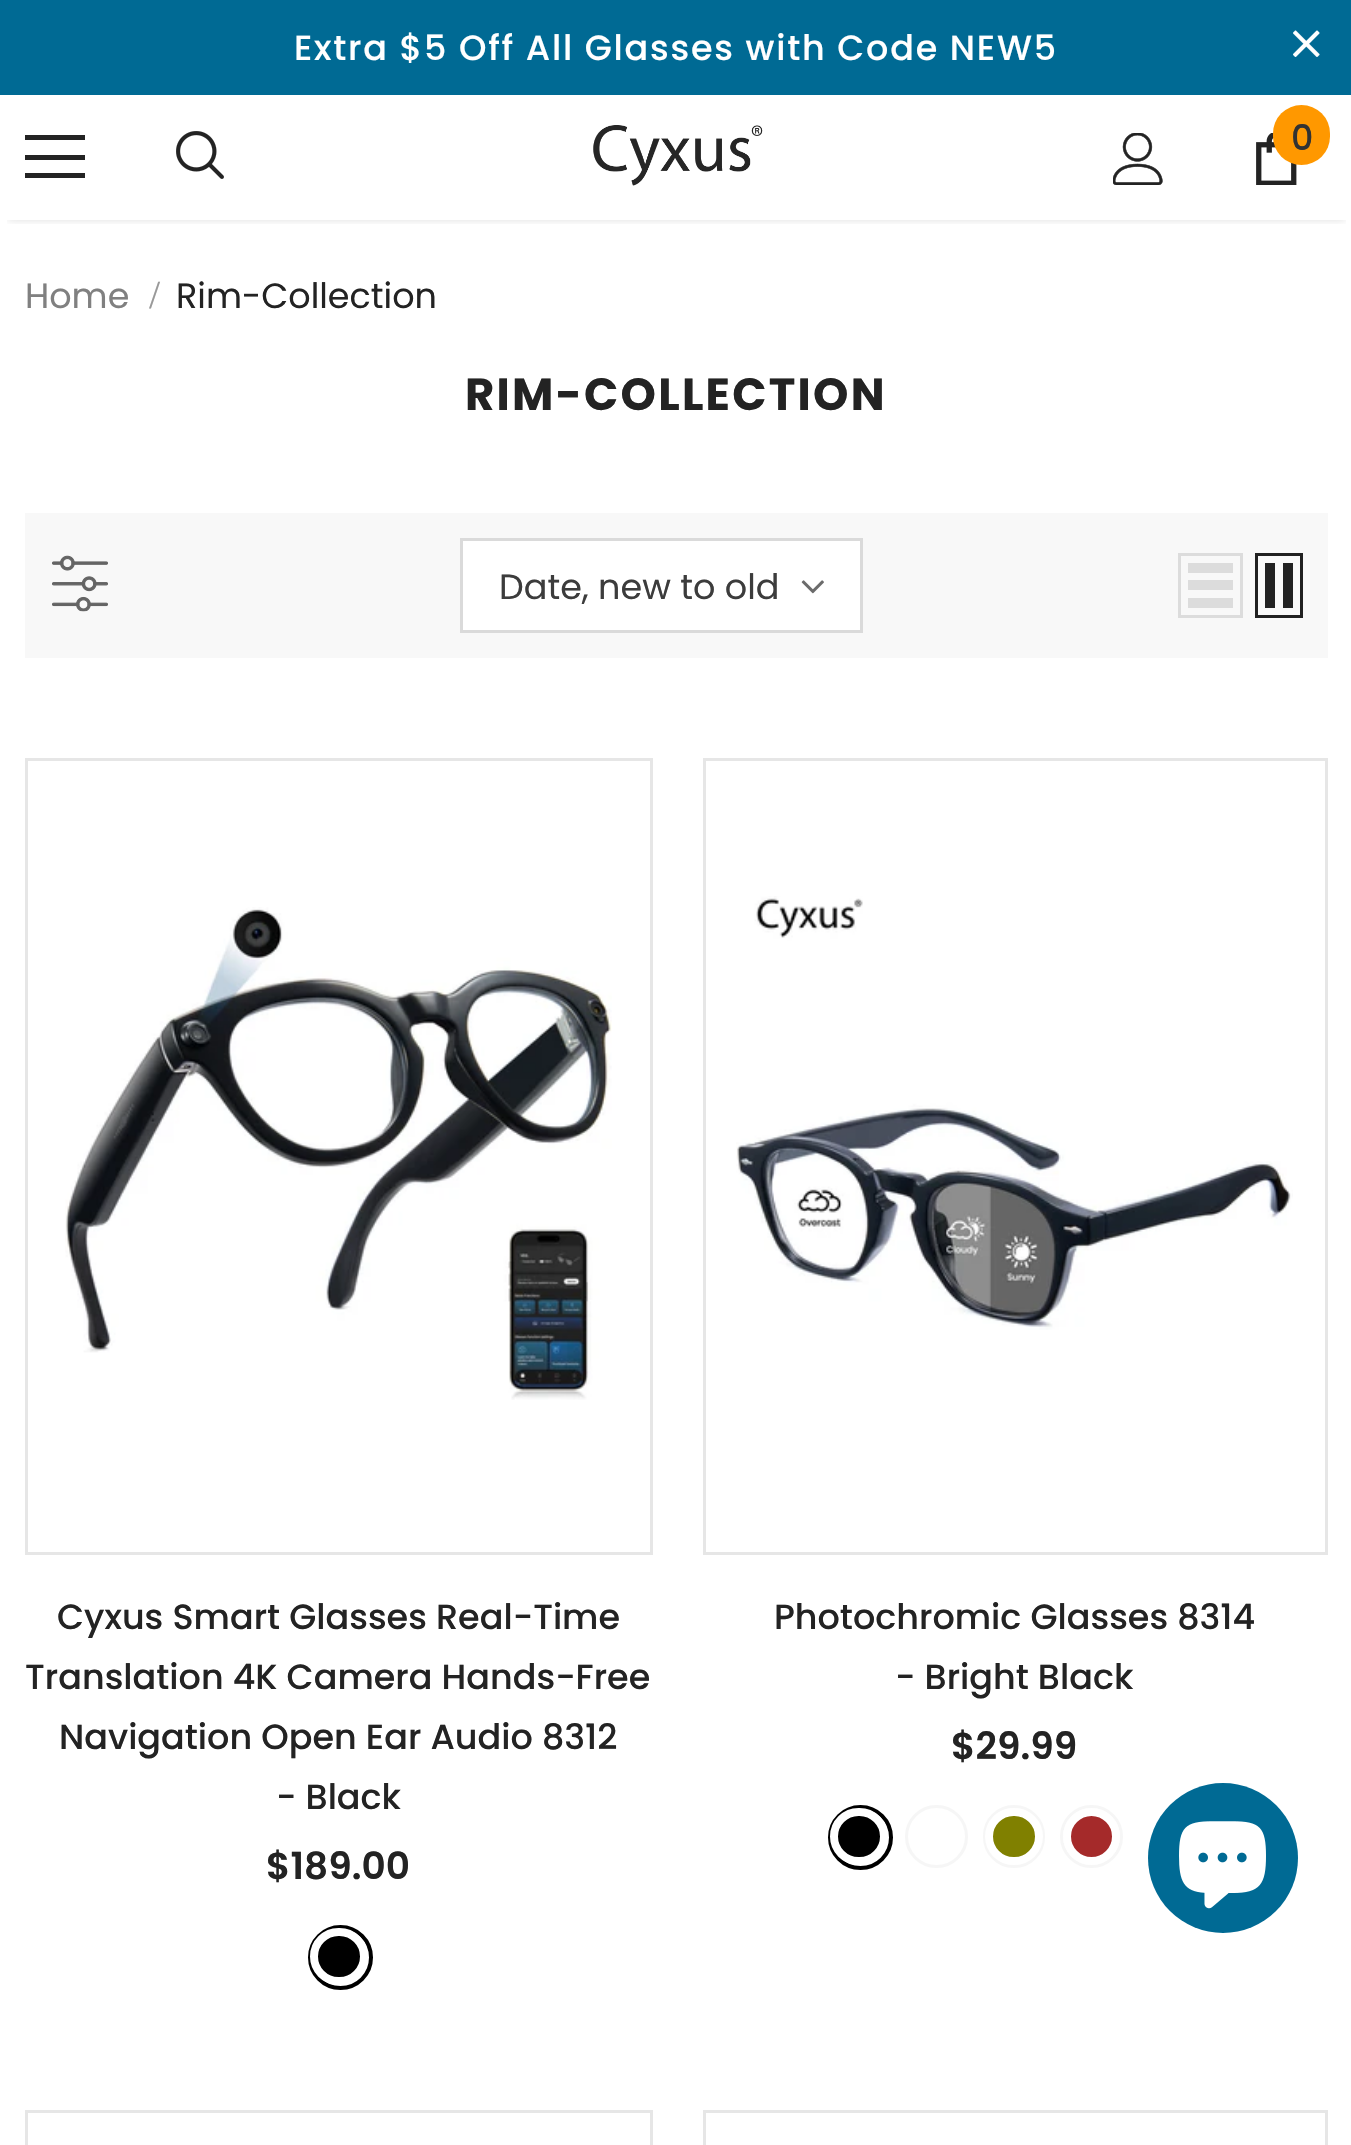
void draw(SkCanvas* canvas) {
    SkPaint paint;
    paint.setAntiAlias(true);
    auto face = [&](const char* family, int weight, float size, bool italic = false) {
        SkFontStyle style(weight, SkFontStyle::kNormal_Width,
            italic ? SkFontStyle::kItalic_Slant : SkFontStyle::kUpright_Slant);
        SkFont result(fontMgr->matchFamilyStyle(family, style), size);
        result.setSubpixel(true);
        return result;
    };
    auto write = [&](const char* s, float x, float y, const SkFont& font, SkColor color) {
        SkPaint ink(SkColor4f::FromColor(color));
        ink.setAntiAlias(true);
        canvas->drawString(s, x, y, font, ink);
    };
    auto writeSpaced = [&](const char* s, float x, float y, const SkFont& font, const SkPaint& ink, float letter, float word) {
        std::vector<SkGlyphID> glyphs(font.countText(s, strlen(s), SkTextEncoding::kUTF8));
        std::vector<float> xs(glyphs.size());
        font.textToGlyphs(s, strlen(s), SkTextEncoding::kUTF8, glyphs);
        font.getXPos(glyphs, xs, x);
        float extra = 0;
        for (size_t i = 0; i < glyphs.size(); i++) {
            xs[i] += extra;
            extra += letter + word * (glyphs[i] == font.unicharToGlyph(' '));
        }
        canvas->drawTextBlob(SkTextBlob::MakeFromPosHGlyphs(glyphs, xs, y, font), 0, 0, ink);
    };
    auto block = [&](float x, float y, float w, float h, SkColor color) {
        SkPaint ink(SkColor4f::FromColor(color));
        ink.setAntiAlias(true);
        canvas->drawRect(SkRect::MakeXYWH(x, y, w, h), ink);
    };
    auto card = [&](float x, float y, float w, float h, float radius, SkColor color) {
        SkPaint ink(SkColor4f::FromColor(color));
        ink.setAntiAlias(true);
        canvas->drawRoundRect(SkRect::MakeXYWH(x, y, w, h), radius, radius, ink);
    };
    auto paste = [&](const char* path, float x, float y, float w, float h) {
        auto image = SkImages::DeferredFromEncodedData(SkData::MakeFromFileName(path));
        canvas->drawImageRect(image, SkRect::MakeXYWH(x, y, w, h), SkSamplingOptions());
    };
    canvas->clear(SK_ColorWHITE);
    block(0, 0, 1351, 95, SkColorSetRGB(0, 106, 148));
    auto kFont1 = face("Poppins", 500, 35);
    paint.setColor(SK_ColorWHITE);
    writeSpaced("Extra $5 Off All Glasses with Code NEW5", 294, 60, kFont1, paint, 1.75f, 0);
    paste("pic1.png", 1293, 30, 27, 27);
    canvas->save();
    canvas->clipRect(SkRect::MakeXYWH(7, 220, 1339, 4));
    paint.setColor(SkColorSetARGB(31, 0, 0, 0));
    paint.setMaskFilter(SkMaskFilter::MakeBlur(kNormal_SkBlurStyle, 4));
    canvas->drawRect(SkRect::MakeXYWH(8, 110, 1337, 110), paint);
    paint.setMaskFilter(nullptr);
    canvas->restore();
    block(25, 135, 60, 5, SkColorSetRGB(35, 35, 35));
    block(25, 155, 60, 5, SkColorSetRGB(35, 35, 35));
    block(25, 173, 60, 5, SkColorSetRGB(35, 35, 35));
    paste("pic2.png", 176, 131, 48, 48);
    paste("pic3.png", 593, 125, 170, 61);
    paste("pic4.png", 1113, 133, 50, 52);
    paste("pic5.png", 1256, 133, 41, 52);
    card(1273, 105, 57, 60, 28.5f, SkColorSetRGB(255, 152, 0));
    write("0", 1291, 150, kFont1, SkColorSetRGB(50, 50, 50));
    auto kFont2 = face("Poppins", 400, 35);
    write("Home", 25, 308, kFont2, SkColorSetRGB(128, 128, 128));
    auto kFont3 = face("Liberation Serif", 400, 40);
    write("/", 149, 308, kFont3, SkColorSetRGB(153, 153, 153));
    write("Rim-Collection", 176, 308, kFont2, SkColorSetRGB(35, 35, 35));
    auto kFont4 = face("Poppins", 700, 45);
    paint.setColor(SkColorSetRGB(35, 35, 35));
    writeSpaced("RIM-COLLECTION", 465, 410, kFont4, paint, 2.25f, 0);
    block(25, 513, 1303, 145, SkColorSetRGB(248, 248, 248));
    paste("pic6.png", 52, 555, 56, 57);
    paint.setColor(SK_ColorWHITE);
    canvas->drawRect(SkRect::MakeXYWH(461.5f, 539.5f, 400, 92), paint);
    paint.setStyle(SkPaint::kStroke_Style);
    paint.setStrokeWidth(3);
    paint.setColor(SkColorSetRGB(218, 218, 218));
    canvas->drawRect(SkRect::MakeXYWH(461.5f, 539.5f, 400, 92), paint);
    write("Date, new to old", 499, 599, kFont2, SkColorSetRGB(60, 60, 60));
    paste("pic7.png", 801, 580, 23, 14);
    paint.setColor(SkColorSetRGB(220, 220, 220));
    canvas->drawRect(SkRect::MakeXYWH(1179.5f, 554.5f, 62, 62), paint);
    block(1188, 598, 45, 10, SkColorSetRGB(220, 220, 220));
    block(1188, 580, 45, 10, SkColorSetRGB(220, 220, 220));
    block(1188, 563, 45, 10, SkColorSetRGB(220, 220, 220));
    paint.setColor(SkColorSetRGB(33, 33, 33));
    canvas->drawRect(SkRect::MakeXYWH(1256.5f, 554.5f, 45, 62), paint);
    block(1283, 563, 10, 45, SkColorSetRGB(33, 33, 33));
    block(1265, 563, 10, 45, SkColorSetRGB(33, 33, 33));
    paint.setColor(SkColorSetRGB(230, 230, 230));
    canvas->drawRect(SkRect::MakeXYWH(26.5f, 759.5f, 625, 794), paint);
    paste("pic8.png", 65, 907, 547, 493);
    write("Cyxus Smart Glasses Real-Time", 57, 1629, kFont1, SkColorSetRGB(35, 35, 35));
    write("Translation 4K Camera Hands-Free", 25, 1689, kFont1, SkColorSetRGB(35, 35, 35));
    write("Navigation Open Ear Audio 8312", 59, 1749, kFont1, SkColorSetRGB(35, 35, 35));
    write("- Black", 276, 1809, kFont1, SkColorSetRGB(35, 35, 35));
    auto kFont5 = face("Poppins", 600, 37.5f);
    write("$189.00", 266, 1879, kFont5, SkColorSetRGB(35, 35, 35));
    paint.setStrokeWidth(4);
    paint.setColor(SK_ColorBLACK);
    canvas->drawCircle(340.5f, 1957.5f, 30.5f, paint);
    paint.setStyle(SkPaint::kFill_Style);
    canvas->drawRoundRect(SkRect::MakeXYWH(314, 1932, 50, 49), 24.5f, 24.5f, paint);
    paint.setStyle(SkPaint::kStroke_Style);
    paint.setStrokeWidth(8);
    paint.setColor(SK_ColorWHITE);
    canvas->drawRoundRect(SkRect::MakeXYWH(314, 1932, 50, 49), 24.5f, 24.5f, paint);
    paint.setStrokeWidth(3);
    paint.setColor(SkColorSetRGB(230, 230, 230));
    canvas->drawRect(SkRect::MakeXYWH(704.5f, 759.5f, 622, 794), paint);
    paste("pic9.png", 736, 896, 557, 434);
    write("Photochromic Glasses 8314", 774, 1629, kFont1, SkColorSetRGB(35, 35, 35));
    write("- Bright Black", 895, 1689, kFont1, SkColorSetRGB(35, 35, 35));
    write("$29.99", 951, 1759, kFont5, SkColorSetRGB(35, 35, 35));
    paint.setStrokeWidth(4);
    paint.setColor(SK_ColorBLACK);
    canvas->drawCircle(860.5f, 1837.5f, 30.5f, paint);
    paint.setStyle(SkPaint::kFill_Style);
    canvas->drawRoundRect(SkRect::MakeXYWH(834, 1812, 50, 49), 24.5f, 24.5f, paint);
    paint.setStyle(SkPaint::kStroke_Style);
    paint.setStrokeWidth(8);
    paint.setColor(SK_ColorWHITE);
    canvas->drawRoundRect(SkRect::MakeXYWH(834, 1812, 50, 49), 24.5f, 24.5f, paint);
    paint.setStrokeWidth(3);
    paint.setColor(SkColorSetRGB(246, 246, 246));
    canvas->drawCircle(936.5f, 1836.5f, 30, paint);
    canvas->drawRoundRect(SkRect::MakeXYWH(984.5f, 1806.5f, 59, 60), 29.5f, 29.5f, paint);
    paint.setStyle(SkPaint::kFill_Style);
    paint.setColor(SkColorSetRGB(128, 128, 0));
    canvas->drawRoundRect(SkRect::MakeXYWH(989, 1812, 50, 49), 24.5f, 24.5f, paint);
    paint.setStyle(SkPaint::kStroke_Style);
    paint.setStrokeWidth(8);
    paint.setColor(SK_ColorWHITE);
    canvas->drawRoundRect(SkRect::MakeXYWH(989, 1812, 50, 49), 24.5f, 24.5f, paint);
    paint.setStrokeWidth(3);
    paint.setColor(SkColorSetRGB(246, 246, 246));
    canvas->drawCircle(1091.5f, 1836.5f, 30, paint);
    paint.setStyle(SkPaint::kFill_Style);
    paint.setColor(SkColorSetRGB(165, 42, 42));
    canvas->drawCircle(1091.5f, 1836.5f, 24.5f, paint);
    paint.setStyle(SkPaint::kStroke_Style);
    paint.setStrokeWidth(8);
    paint.setColor(SK_ColorWHITE);
    canvas->drawCircle(1091.5f, 1836.5f, 24.5f, paint);
    paint.setStrokeWidth(3);
    paint.setColor(SkColorSetRGB(230, 230, 230));
    canvas->drawRect(SkRect::MakeXYWH(26.5f, 2111.5f, 625, 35), paint);
    canvas->drawRect(SkRect::MakeXYWH(704.5f, 2111.5f, 622, 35), paint);
    paint.setStyle(SkPaint::kFill_Style);
    paint.setColor(SkColorSetRGB(0, 106, 148));
    canvas->drawCircle(1223, 1858, 75, paint);
    paste("pic10.png", 1179, 1821, 87, 88);
}
